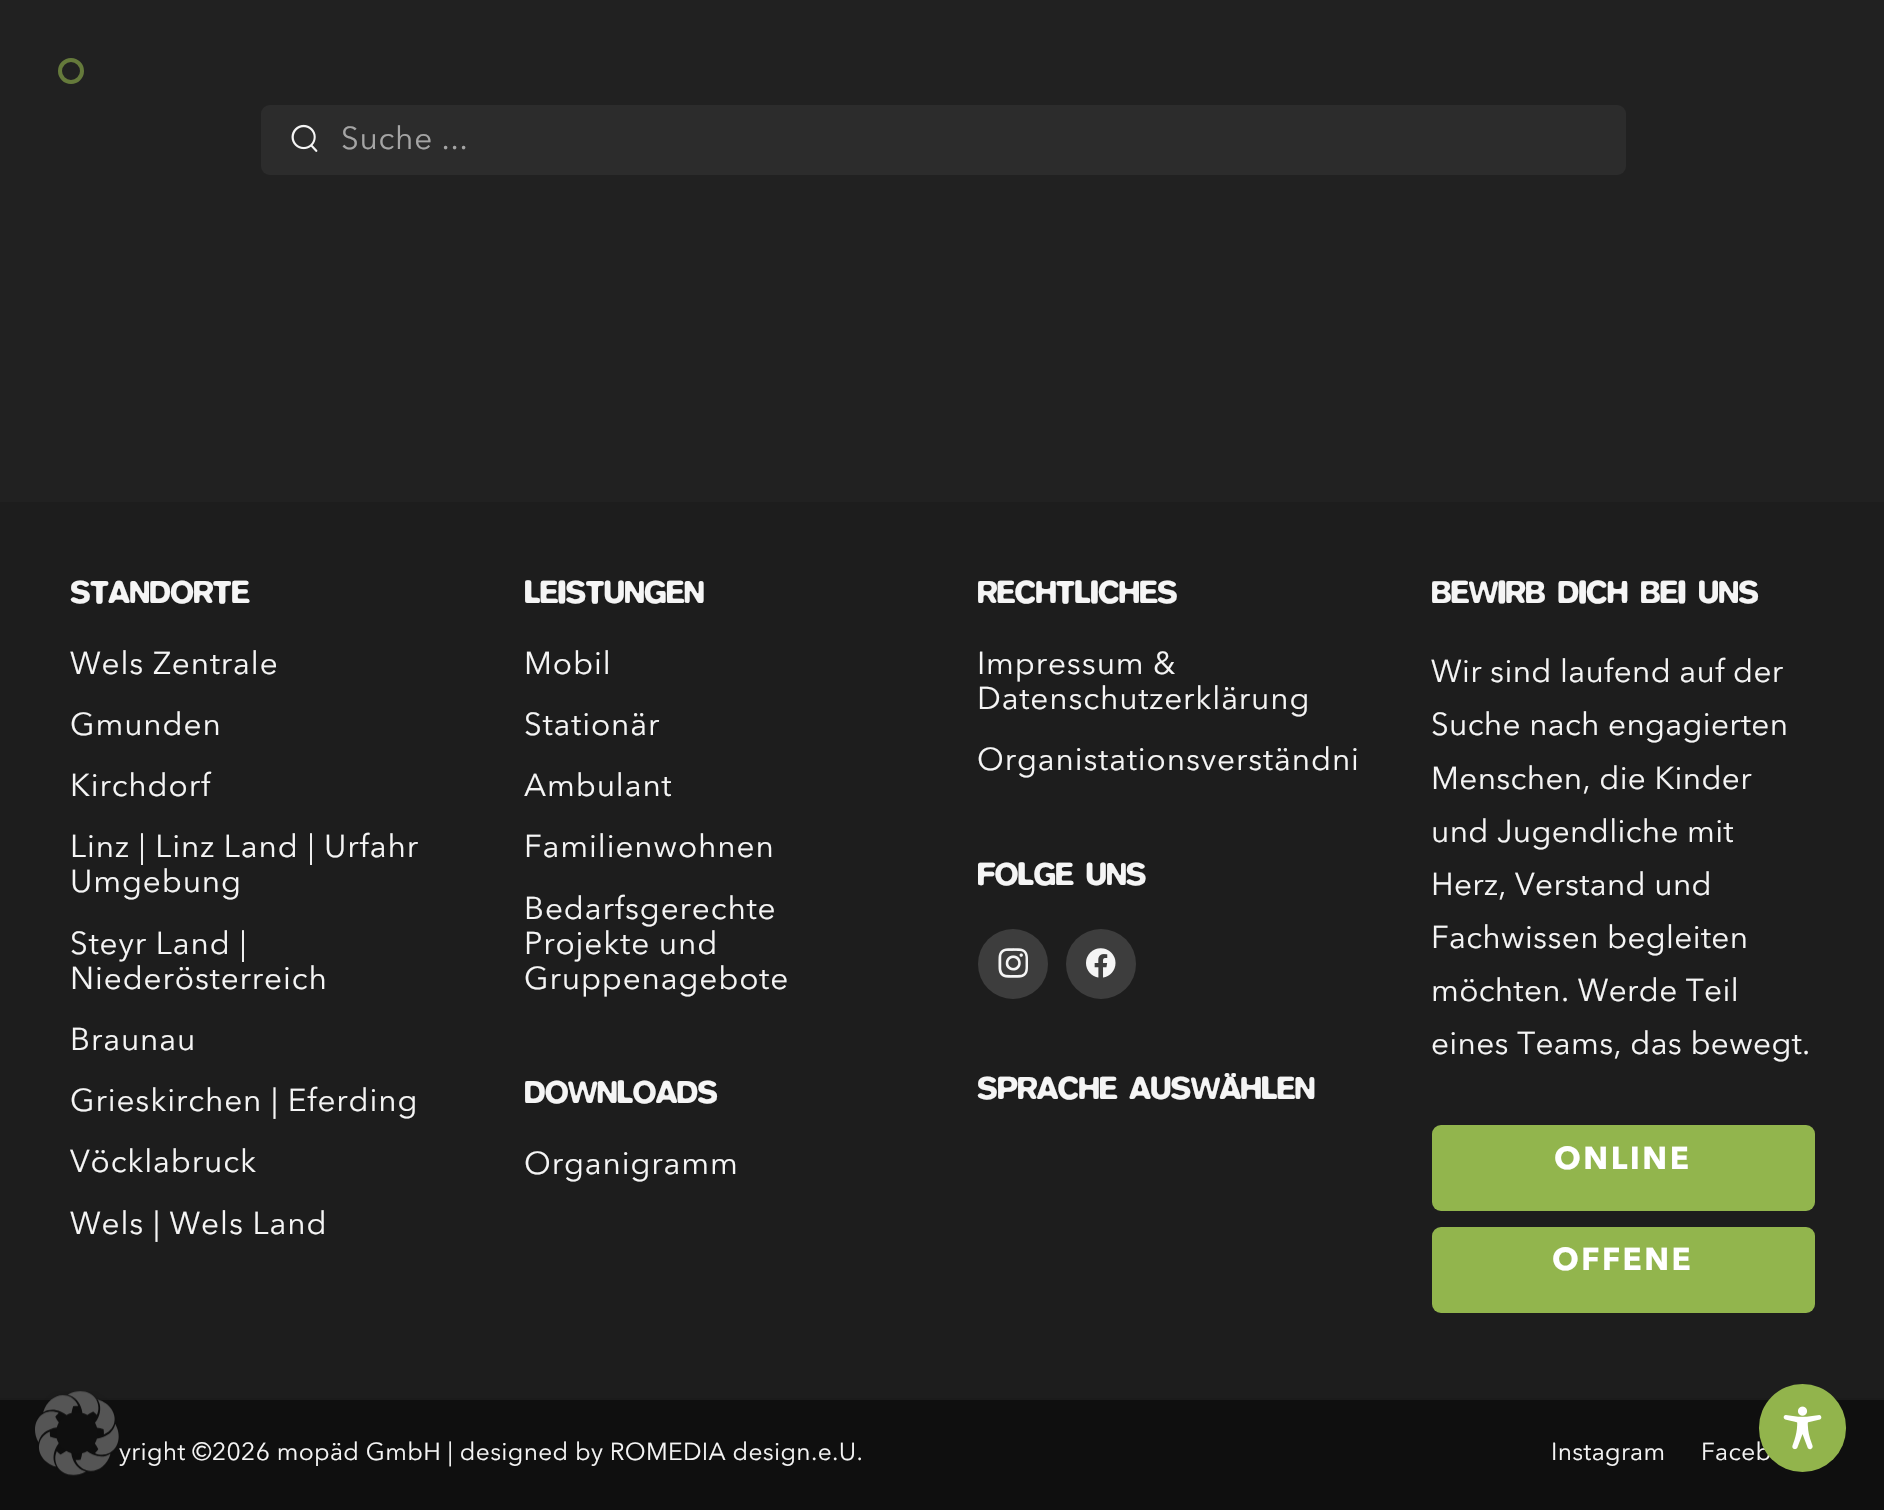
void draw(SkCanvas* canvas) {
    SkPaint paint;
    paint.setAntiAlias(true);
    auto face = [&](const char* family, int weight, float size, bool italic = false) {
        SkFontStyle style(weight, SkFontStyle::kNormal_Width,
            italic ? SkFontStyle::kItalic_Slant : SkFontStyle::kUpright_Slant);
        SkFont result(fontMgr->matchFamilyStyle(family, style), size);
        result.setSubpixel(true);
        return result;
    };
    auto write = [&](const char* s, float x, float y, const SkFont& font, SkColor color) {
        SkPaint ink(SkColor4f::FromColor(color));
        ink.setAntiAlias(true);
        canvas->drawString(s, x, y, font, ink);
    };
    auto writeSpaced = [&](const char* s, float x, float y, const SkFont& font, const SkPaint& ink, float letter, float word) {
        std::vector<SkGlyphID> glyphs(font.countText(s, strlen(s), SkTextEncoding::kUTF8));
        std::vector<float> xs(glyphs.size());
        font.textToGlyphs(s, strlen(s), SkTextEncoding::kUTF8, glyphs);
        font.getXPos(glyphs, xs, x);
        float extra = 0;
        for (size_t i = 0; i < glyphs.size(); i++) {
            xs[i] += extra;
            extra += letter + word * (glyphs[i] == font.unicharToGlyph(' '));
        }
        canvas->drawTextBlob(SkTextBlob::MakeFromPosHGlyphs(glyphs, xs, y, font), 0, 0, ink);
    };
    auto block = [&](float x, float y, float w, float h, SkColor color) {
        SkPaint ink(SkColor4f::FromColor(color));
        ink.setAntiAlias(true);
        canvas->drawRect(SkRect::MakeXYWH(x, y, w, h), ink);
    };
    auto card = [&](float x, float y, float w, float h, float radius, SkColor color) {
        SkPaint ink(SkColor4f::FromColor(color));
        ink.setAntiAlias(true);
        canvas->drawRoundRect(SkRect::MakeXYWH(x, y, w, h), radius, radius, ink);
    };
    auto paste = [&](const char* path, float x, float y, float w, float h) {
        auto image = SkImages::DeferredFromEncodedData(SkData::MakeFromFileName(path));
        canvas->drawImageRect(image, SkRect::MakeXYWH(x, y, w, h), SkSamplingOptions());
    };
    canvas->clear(SkColorSetRGB(33, 33, 33));
    paint.setStyle(SkPaint::kStroke_Style);
    paint.setStrokeWidth(4);
    paint.setColor(SkColorSetRGB(101, 122, 59));
    canvas->drawCircle(71, 71, 11, paint);
    card(261, 105, 1365, 70, 9, SkColorSetRGB(44, 44, 44));
    paste("pic1.png", 291, 124, 27, 28);
    auto kFont1 = face("Avenir Next", 400, 31.5f);
    paint.setStyle(SkPaint::kFill_Style);
    paint.setColor(SkColorSetRGB(165, 165, 165));
    writeSpaced("Suche ...", 341, 149, kFont1, paint, 0.75f, 0);
    block(0, 502, 1884, 896, SkColorSetRGB(29, 29, 29));
    auto kFont2 = face("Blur", 700, 31.5f);
    write("STANDORTE", 70, 603, kFont2, SkColorSetRGB(245, 245, 245));
    paint.setColor(SkColorSetRGB(245, 245, 245));
    writeSpaced("Wels Zentrale", 70, 674, kFont1, paint, 0.9f, 0);
    writeSpaced("Gmunden", 70, 735, kFont1, paint, 0.9f, 0);
    writeSpaced("Kirchdorf", 70, 796, kFont1, paint, 0.9f, 0);
    writeSpaced("Linz | Linz Land | Urfahr", 70, 857, kFont1, paint, 0.9f, 0);
    writeSpaced("Umgebung", 70, 892, kFont1, paint, 0.9f, 0);
    writeSpaced("Steyr Land |", 70, 954, kFont1, paint, 0.9f, 0);
    writeSpaced("Niederösterreich", 70, 989, kFont1, paint, 0.9f, 0);
    writeSpaced("Braunau", 70, 1050, kFont1, paint, 0.9f, 0);
    writeSpaced("Grieskirchen | Eferding", 70, 1111, kFont1, paint, 0.9f, 0);
    writeSpaced("Vöcklabruck", 70, 1172, kFont1, paint, 0.9f, 0);
    writeSpaced("Wels | Wels Land", 70, 1234, kFont1, paint, 0.9f, 0);
    write("LEISTUNGEN", 524, 603, kFont2, SkColorSetRGB(245, 245, 245));
    writeSpaced("Mobil", 524, 674, kFont1, paint, 0.9f, 0);
    writeSpaced("Stationär", 524, 735, kFont1, paint, 0.9f, 0);
    writeSpaced("Ambulant", 524, 796, kFont1, paint, 0.9f, 0);
    writeSpaced("Familienwohnen", 524, 857, kFont1, paint, 0.9f, 0);
    writeSpaced("Bedarfsgerechte", 524, 919, kFont1, paint, 0.9f, 0);
    writeSpaced("Projekte und", 524, 954, kFont1, paint, 0.9f, 0);
    writeSpaced("Gruppenagebote", 524, 989, kFont1, paint, 0.9f, 0);
    write("DOWNLOADS", 524, 1103, kFont2, SkColorSetRGB(245, 245, 245));
    writeSpaced("Organigramm", 524, 1174, kFont1, paint, 0.9f, 0);
    write("RECHTLICHES", 977, 603, kFont2, SkColorSetRGB(245, 245, 245));
    writeSpaced("Impressum &", 977, 674, kFont1, paint, 0.9f, 0);
    writeSpaced("Datenschutzerklärung", 977, 709, kFont1, paint, 0.9f, 0);
    writeSpaced("Organistationsverständni", 977, 770, kFont1, paint, 0.9f, 0);
    write("FOLGE UNS", 977, 885, kFont2, SkColorSetRGB(245, 245, 245));
    paint.setColor(SkColorSetRGB(61, 61, 61));
    canvas->drawCircle(1013, 964, 35, paint);
    paste("pic2.png", 998, 948, 30, 30);
    canvas->drawCircle(1101, 964, 35, paint);
    paste("pic3.png", 1086, 948, 30, 30);
    write("SPRACHE AUSWÄHLEN", 977, 1099, kFont2, SkColorSetRGB(245, 245, 245));
    write("BEWIRB DICH BEI UNS", 1431, 603, kFont2, SkColorSetRGB(245, 245, 245));
    paint.setColor(SkColorSetRGB(245, 245, 245));
    writeSpaced("Wir sind laufend auf der", 1431, 682, kFont1, paint, 0.35f, 0);
    writeSpaced("Suche nach engagierten", 1431, 735, kFont1, paint, 0.35f, 0);
    writeSpaced("Menschen, die Kinder", 1431, 789, kFont1, paint, 0.35f, 0);
    writeSpaced("und Jugendliche mit", 1431, 842, kFont1, paint, 0.35f, 0);
    writeSpaced("Herz, Verstand und", 1431, 895, kFont1, paint, 0.35f, 0);
    writeSpaced("Fachwissen begleiten", 1431, 948, kFont1, paint, 0.35f, 0);
    writeSpaced("möchten. Werde Teil", 1431, 1001, kFont1, paint, 0.35f, 0);
    writeSpaced("eines Teams, das bewegt.", 1431, 1054, kFont1, paint, 0.35f, 0);
    card(1432, 1125, 383, 86, 9, SkColorSetRGB(146, 181, 77));
    auto kFont3 = face("Avenir Next", 700, 31.5f);
    paint.setColor(SK_ColorWHITE);
    writeSpaced("ONLINE", 1554, 1169, kFont3, paint, 2.5f, 0);
    card(1432, 1227, 383, 86, 9, SkColorSetRGB(146, 181, 77));
    writeSpaced("OFFENE", 1552, 1270, kFont3, paint, 2.5f, 0);
    block(0, 1400, 1884, 110, SkColorSetRGB(15, 15, 15));
    block(0, 1398, 1884, 2, SkColorSetRGB(27, 27, 27));
    auto kFont4 = face("Avenir Next", 400, 24.5f);
    paint.setColor(SkColorSetRGB(245, 245, 245));
    writeSpaced("yright ©2026 mopäd GmbH | designed by ROMEDIA design.e.U.", 119, 1460, kFont4, paint, 0.35f, 0);
    writeSpaced("Instagram", 1551, 1460, kFont4, paint, 0.35f, 0);
    writeSpaced("Faceb", 1701, 1460, kFont4, paint, 0.35f, 0);
    paste("pic4.png", 35, 1391, 87, 85);
    card(1759, 1384, 87, 88, 43.5f, SkColorSetRGB(146, 180, 76));
    paste("pic5.png", 1783, 1406, 39, 44);
}
